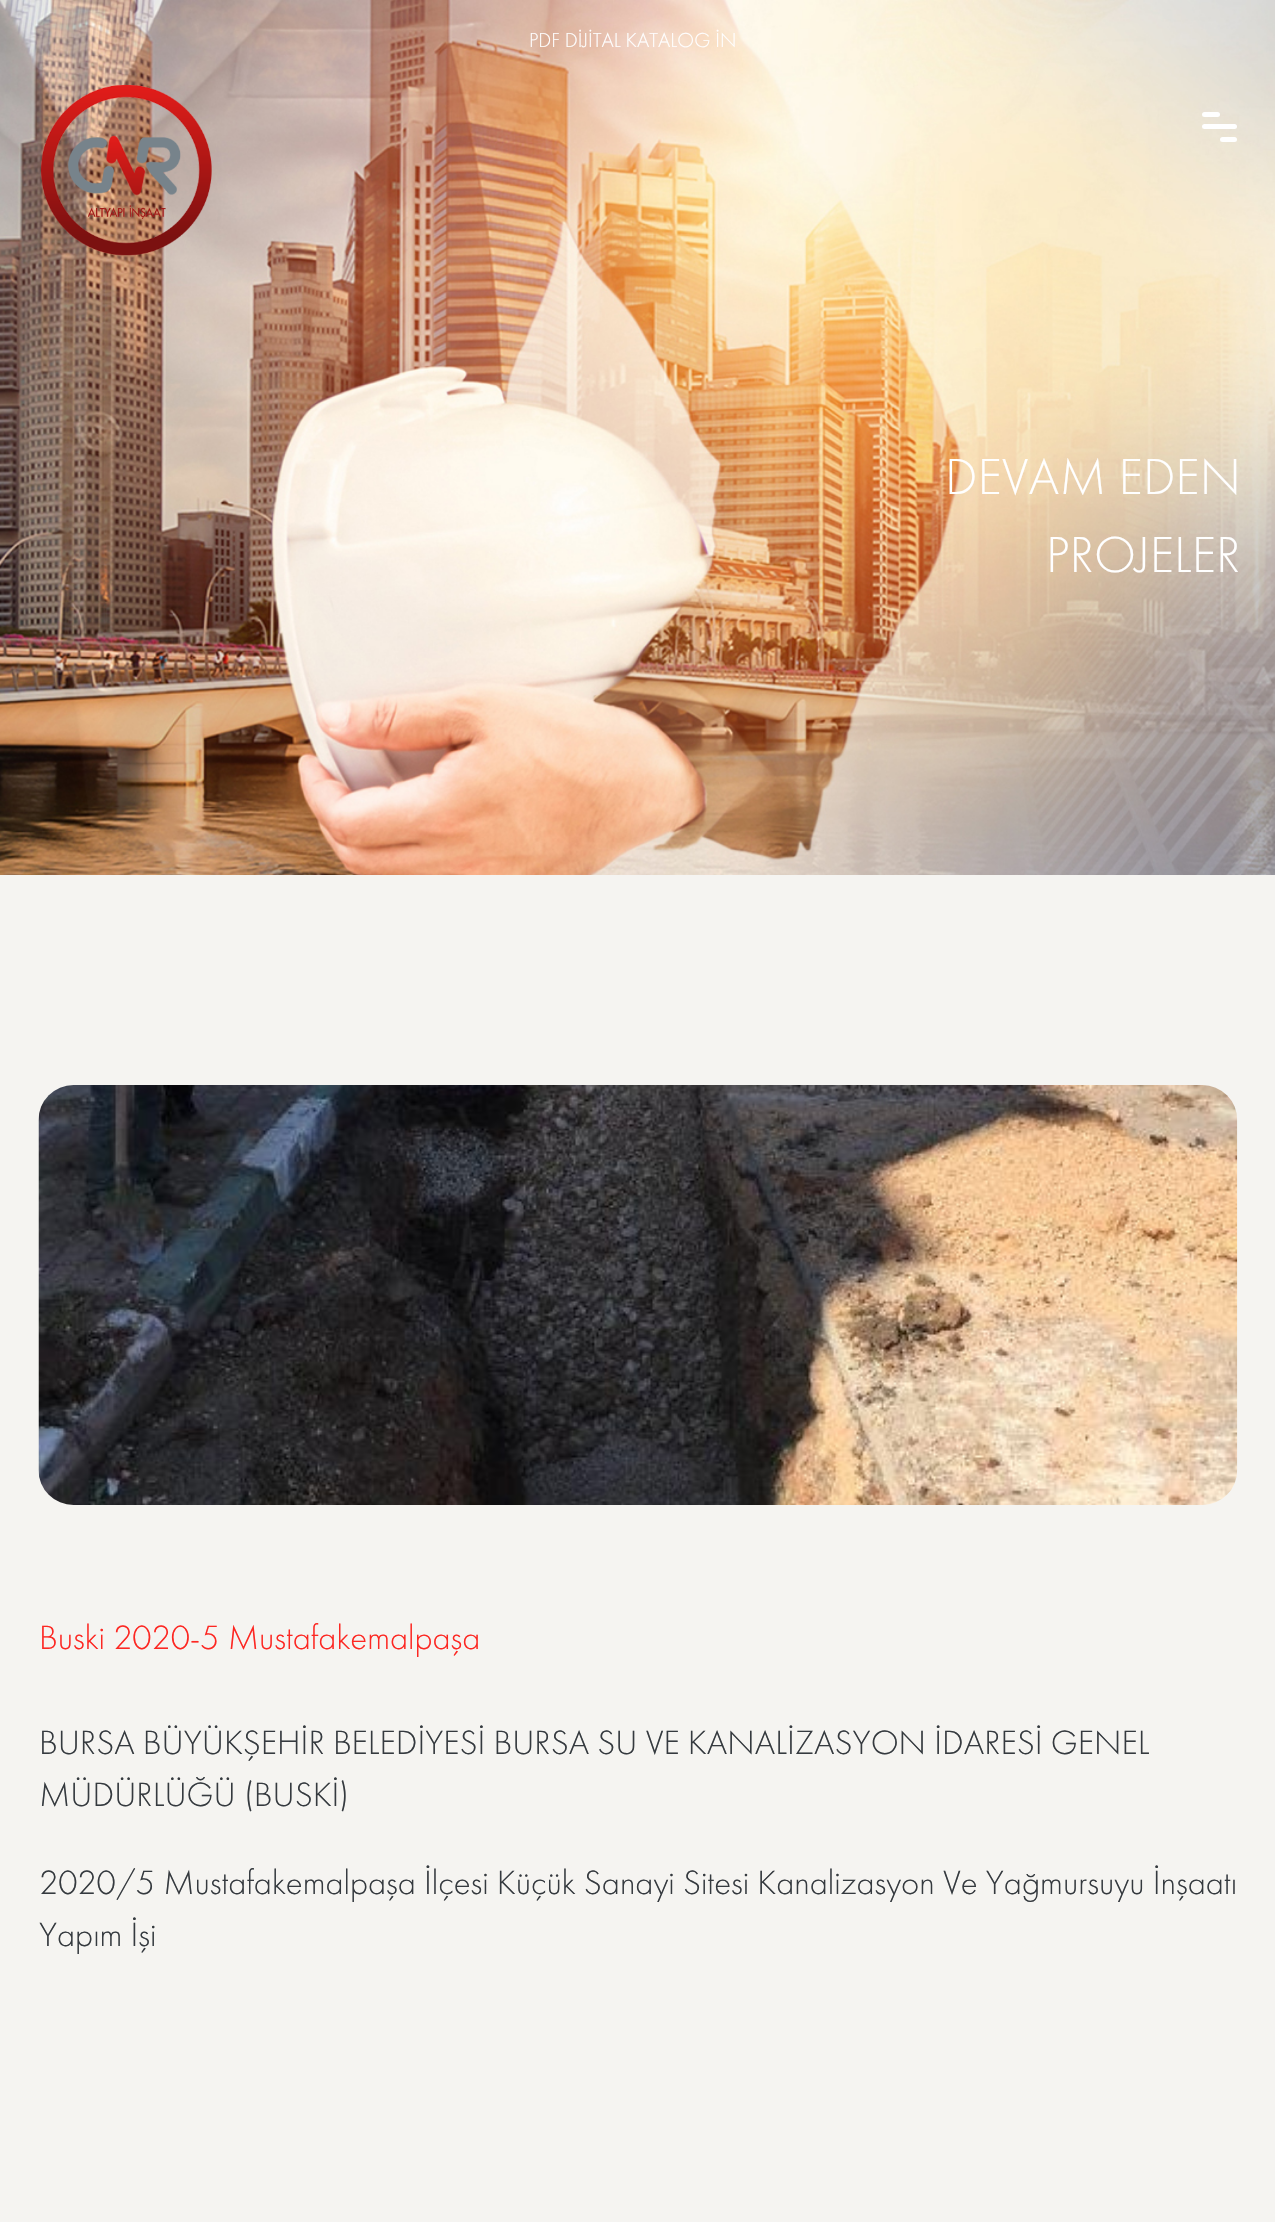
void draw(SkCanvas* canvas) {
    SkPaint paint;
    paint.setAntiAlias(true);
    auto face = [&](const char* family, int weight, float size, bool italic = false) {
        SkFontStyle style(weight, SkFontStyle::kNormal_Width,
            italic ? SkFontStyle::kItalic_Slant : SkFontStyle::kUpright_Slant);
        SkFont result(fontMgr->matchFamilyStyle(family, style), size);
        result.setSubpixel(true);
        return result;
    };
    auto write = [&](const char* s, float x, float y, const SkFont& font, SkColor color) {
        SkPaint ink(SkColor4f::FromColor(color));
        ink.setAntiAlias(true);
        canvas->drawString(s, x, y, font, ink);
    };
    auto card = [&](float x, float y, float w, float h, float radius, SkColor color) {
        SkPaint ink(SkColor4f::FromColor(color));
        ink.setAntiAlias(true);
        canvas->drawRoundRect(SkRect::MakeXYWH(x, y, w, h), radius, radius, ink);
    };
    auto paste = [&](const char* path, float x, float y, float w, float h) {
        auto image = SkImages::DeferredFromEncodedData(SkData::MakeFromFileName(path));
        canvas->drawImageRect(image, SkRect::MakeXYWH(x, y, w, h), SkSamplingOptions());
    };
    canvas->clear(SkColorSetRGB(245, 244, 241));
    paste("pic2.png", 0, 0, 1275, 875);
    auto kFont1 = face("Futura PT", 300, 21);
    write("PDF DİJİTAL KATALOG İN", 529, 47, kFont1, SK_ColorWHITE);
    paste("pic1.png", 41, 85, 171, 171);
    card(1202, 112, 18, 5, 2.5f, SK_ColorWHITE);
    card(1202, 124, 35, 5, 2.5f, SK_ColorWHITE);
    card(1220, 137, 17, 5, 2.5f, SK_ColorWHITE);
    auto kFont2 = face("Futura PT", 300, 52.5f);
    write("DEVAM EDEN", 945, 494, kFont2, SK_ColorWHITE);
    write("PROJELER", 1046, 572, kFont2, SK_ColorWHITE);
    paste("pic3.png", 38, 1085, 1200, 420);
    auto kFont3 = face("Futura PT", 300, 35);
    write("Buski 2020-5 Mustafakemalpaşa", 39, 1649, kFont3, SkColorSetRGB(253, 39, 34));
    write("BURSA BÜYÜKŞEHİR BELEDİYESİ BURSA SU VE KANALİZASYON İDARESİ GENEL", 39, 1754, kFont3, SkColorSetRGB(53, 58, 63));
    write("MÜDÜRLÜĞÜ (BUSKİ)", 39, 1806, kFont3, SkColorSetRGB(53, 58, 63));
    write("2020/5 Mustafakemalpaşa İlçesi Küçük Sanayi Sitesi Kanalizasyon Ve Yağmursuyu İnşaatı", 39, 1894, kFont3, SkColorSetRGB(53, 58, 63));
    write("Yapım İşi", 39, 1946, kFont3, SkColorSetRGB(53, 58, 63));
}
